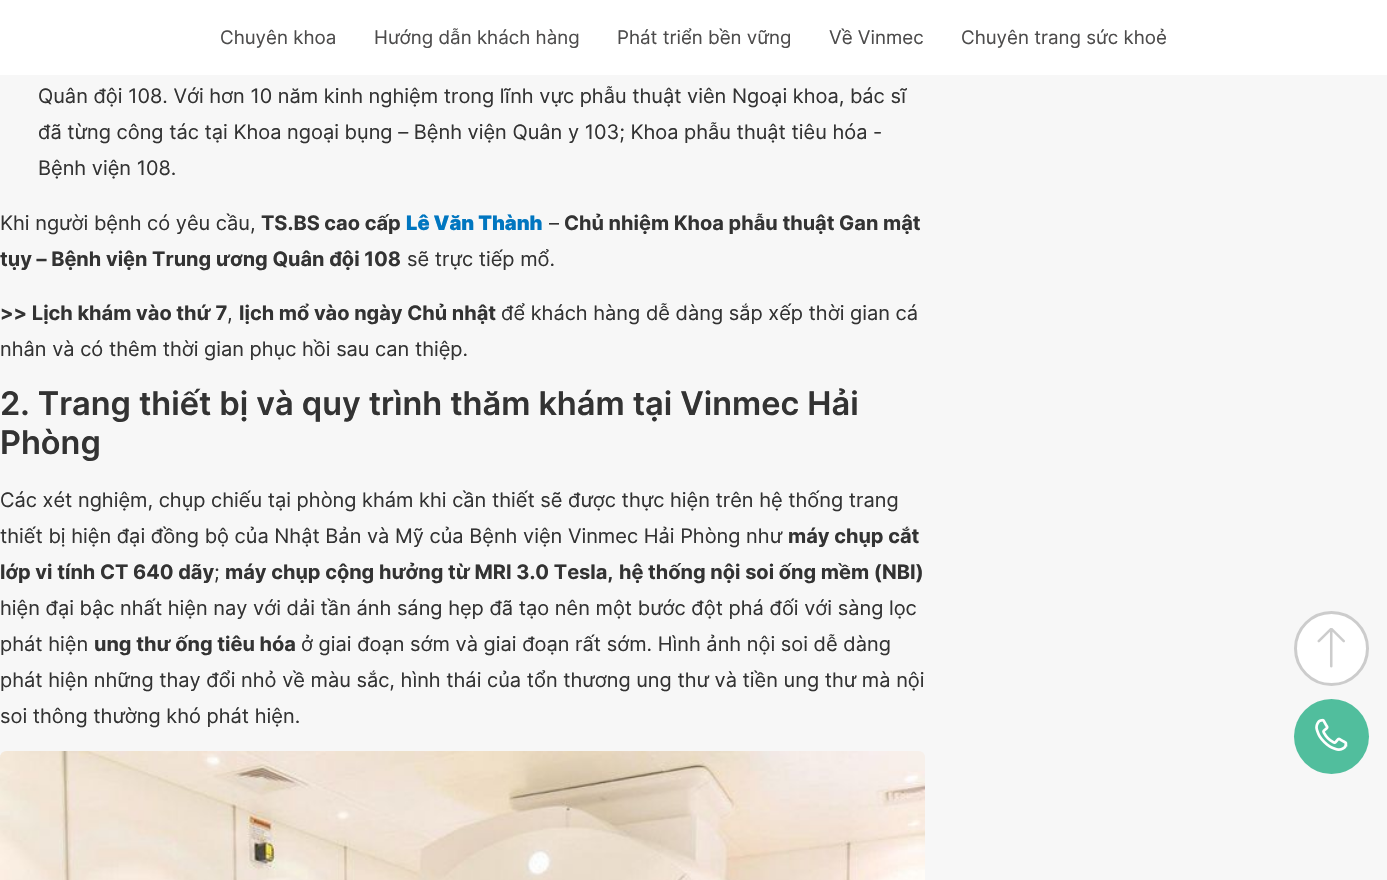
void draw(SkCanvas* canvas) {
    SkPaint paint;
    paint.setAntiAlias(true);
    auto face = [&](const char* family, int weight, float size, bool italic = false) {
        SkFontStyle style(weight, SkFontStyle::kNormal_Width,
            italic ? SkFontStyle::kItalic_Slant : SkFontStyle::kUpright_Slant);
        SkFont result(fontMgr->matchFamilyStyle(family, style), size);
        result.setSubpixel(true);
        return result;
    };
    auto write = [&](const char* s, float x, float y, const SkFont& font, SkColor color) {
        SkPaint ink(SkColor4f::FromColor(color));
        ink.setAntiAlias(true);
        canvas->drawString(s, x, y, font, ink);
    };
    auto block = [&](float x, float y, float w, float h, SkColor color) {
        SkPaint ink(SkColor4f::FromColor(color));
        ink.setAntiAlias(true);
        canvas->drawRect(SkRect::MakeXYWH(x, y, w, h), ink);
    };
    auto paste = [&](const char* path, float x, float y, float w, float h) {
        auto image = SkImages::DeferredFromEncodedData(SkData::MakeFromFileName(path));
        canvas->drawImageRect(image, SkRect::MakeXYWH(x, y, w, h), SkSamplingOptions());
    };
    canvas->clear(SkColorSetRGB(247, 247, 247));
    block(0, 0, 1387, 75, SK_ColorWHITE);
    auto kFont1 = face("Inter", 400, 18.75f);
    write("Chuyên khoa", 220, 44, kFont1, SkColorSetRGB(77, 76, 76));
    write("Hướng dẫn khách hàng", 374, 44, kFont1, SkColorSetRGB(77, 76, 76));
    write("Phát triển bền vững", 617, 44, kFont1, SkColorSetRGB(77, 76, 76));
    write("Về Vinmec", 829, 44, kFont1, SkColorSetRGB(77, 76, 76));
    write("Chuyên trang sức khoẻ", 961, 44, kFont1, SkColorSetRGB(77, 76, 76));
    auto kFont2 = face("Inter", 400, 20);
    write("Quân đội 108. Với hơn 10 năm kinh nghiệm trong lĩnh vực phẫu thuật viên Ngoại khoa, bác sĩ", 38, 103, kFont2, SkColorSetRGB(51, 51, 51));
    write("đã từng công tác tại Khoa ngoại bụng – Bệnh viện Quân y 103; Khoa phẫu thuật tiêu hóa -", 38, 139, kFont2, SkColorSetRGB(51, 51, 51));
    write("Bệnh viện 108.", 38, 175, kFont2, SkColorSetRGB(51, 51, 51));
    write("Khi người bệnh có yêu cầu,", 0, 230, kFont2, SkColorSetRGB(51, 51, 51));
    auto kFont3 = face("Inter", 700, 20);
    write("TS.BS cao cấp", 261, 230, kFont3, SkColorSetRGB(51, 51, 51));
    auto kFont4 = face("Inter", 900, 20);
    write("Lê Văn Thành", 406, 230, kFont4, SkColorSetRGB(0, 118, 192));
    write("–", 549, 230, kFont2, SkColorSetRGB(51, 51, 51));
    write("Chủ nhiệm Khoa phẫu thuật Gan mật", 564, 230, kFont3, SkColorSetRGB(51, 51, 51));
    write("tụy – Bệnh viện Trung ương Quân đội 108", 0, 266, kFont3, SkColorSetRGB(51, 51, 51));
    write("sẽ trực tiếp mổ.", 407, 266, kFont2, SkColorSetRGB(51, 51, 51));
    write(">> Lịch khám vào thứ 7", 0, 320, kFont3, SkColorSetRGB(51, 51, 51));
    write(",", 227, 320, kFont2, SkColorSetRGB(51, 51, 51));
    write("lịch mổ vào ngày Chủ nhật", 239, 320, kFont3, SkColorSetRGB(51, 51, 51));
    write("để khách hàng dễ dàng sắp xếp thời gian cá", 501, 320, kFont2, SkColorSetRGB(51, 51, 51));
    write("nhân và có thêm thời gian phục hồi sau can thiệp.", 0, 356, kFont2, SkColorSetRGB(51, 51, 51));
    auto kFont5 = face("Inter", 600, 32.5f);
    write("2. Trang thiết bị và quy trình thăm khám tại Vinmec Hải", 0, 415, kFont5, SkColorSetRGB(51, 51, 51));
    write("Phòng", 0, 454, kFont5, SkColorSetRGB(51, 51, 51));
    write("Các xét nghiệm, chụp chiếu tại phòng khám khi cần thiết sẽ được thực hiện trên hệ thống trang", 0, 507, kFont2, SkColorSetRGB(51, 51, 51));
    write("thiết bị hiện đại đồng bộ của Nhật Bản và Mỹ của Bệnh viện Vinmec Hải Phòng như", 0, 543, kFont2, SkColorSetRGB(51, 51, 51));
    write("máy chụp cắt", 788, 543, kFont3, SkColorSetRGB(51, 51, 51));
    write("lớp vi tính CT 640 dãy", 0, 579, kFont3, SkColorSetRGB(51, 51, 51));
    write(";", 214, 579, kFont2, SkColorSetRGB(51, 51, 51));
    write("máy chụp cộng hưởng từ MRI 3.0 Tesla,", 225, 579, kFont3, SkColorSetRGB(51, 51, 51));
    write("hệ thống nội soi ống mềm (NBI)", 619, 579, kFont3, SkColorSetRGB(51, 51, 51));
    write("hiện đại bậc nhất hiện nay với dải tần ánh sáng hẹp đã tạo nên một bước đột phá đối với sàng lọc", 0, 615, kFont2, SkColorSetRGB(51, 51, 51));
    write("phát hiện", 0, 651, kFont2, SkColorSetRGB(51, 51, 51));
    write("ung thư ống tiêu hóa", 94, 651, kFont3, SkColorSetRGB(51, 51, 51));
    write("ở giai đoạn sớm và giai đoạn rất sớm. Hình ảnh nội soi dễ dàng", 301, 651, kFont2, SkColorSetRGB(51, 51, 51));
    write("phát hiện những thay đổi nhỏ về màu sắc, hình thái của tổn thương ung thư và tiền ung thư mà nội", 0, 687, kFont2, SkColorSetRGB(51, 51, 51));
    write("soi thông thường khó phát hiện.", 0, 723, kFont2, SkColorSetRGB(51, 51, 51));
    paste("pic1.png", 0, 751, 925, 129);
    paint.setColor(SK_ColorWHITE);
    canvas->drawCircle(1331.5f, 648.5f, 36, paint);
    paint.setStyle(SkPaint::kStroke_Style);
    paint.setStrokeWidth(3);
    paint.setColor(SkColorSetRGB(204, 204, 204));
    canvas->drawCircle(1331.5f, 648.5f, 36, paint);
    paste("pic2.png", 1317, 628, 28, 40);
    paint.setStyle(SkPaint::kFill_Style);
    paint.setColor(SkColorSetRGB(81, 190, 157));
    canvas->drawCircle(1331.5f, 736.5f, 37.5f, paint);
    paste("pic3.png", 1315, 718, 33, 33);
}
